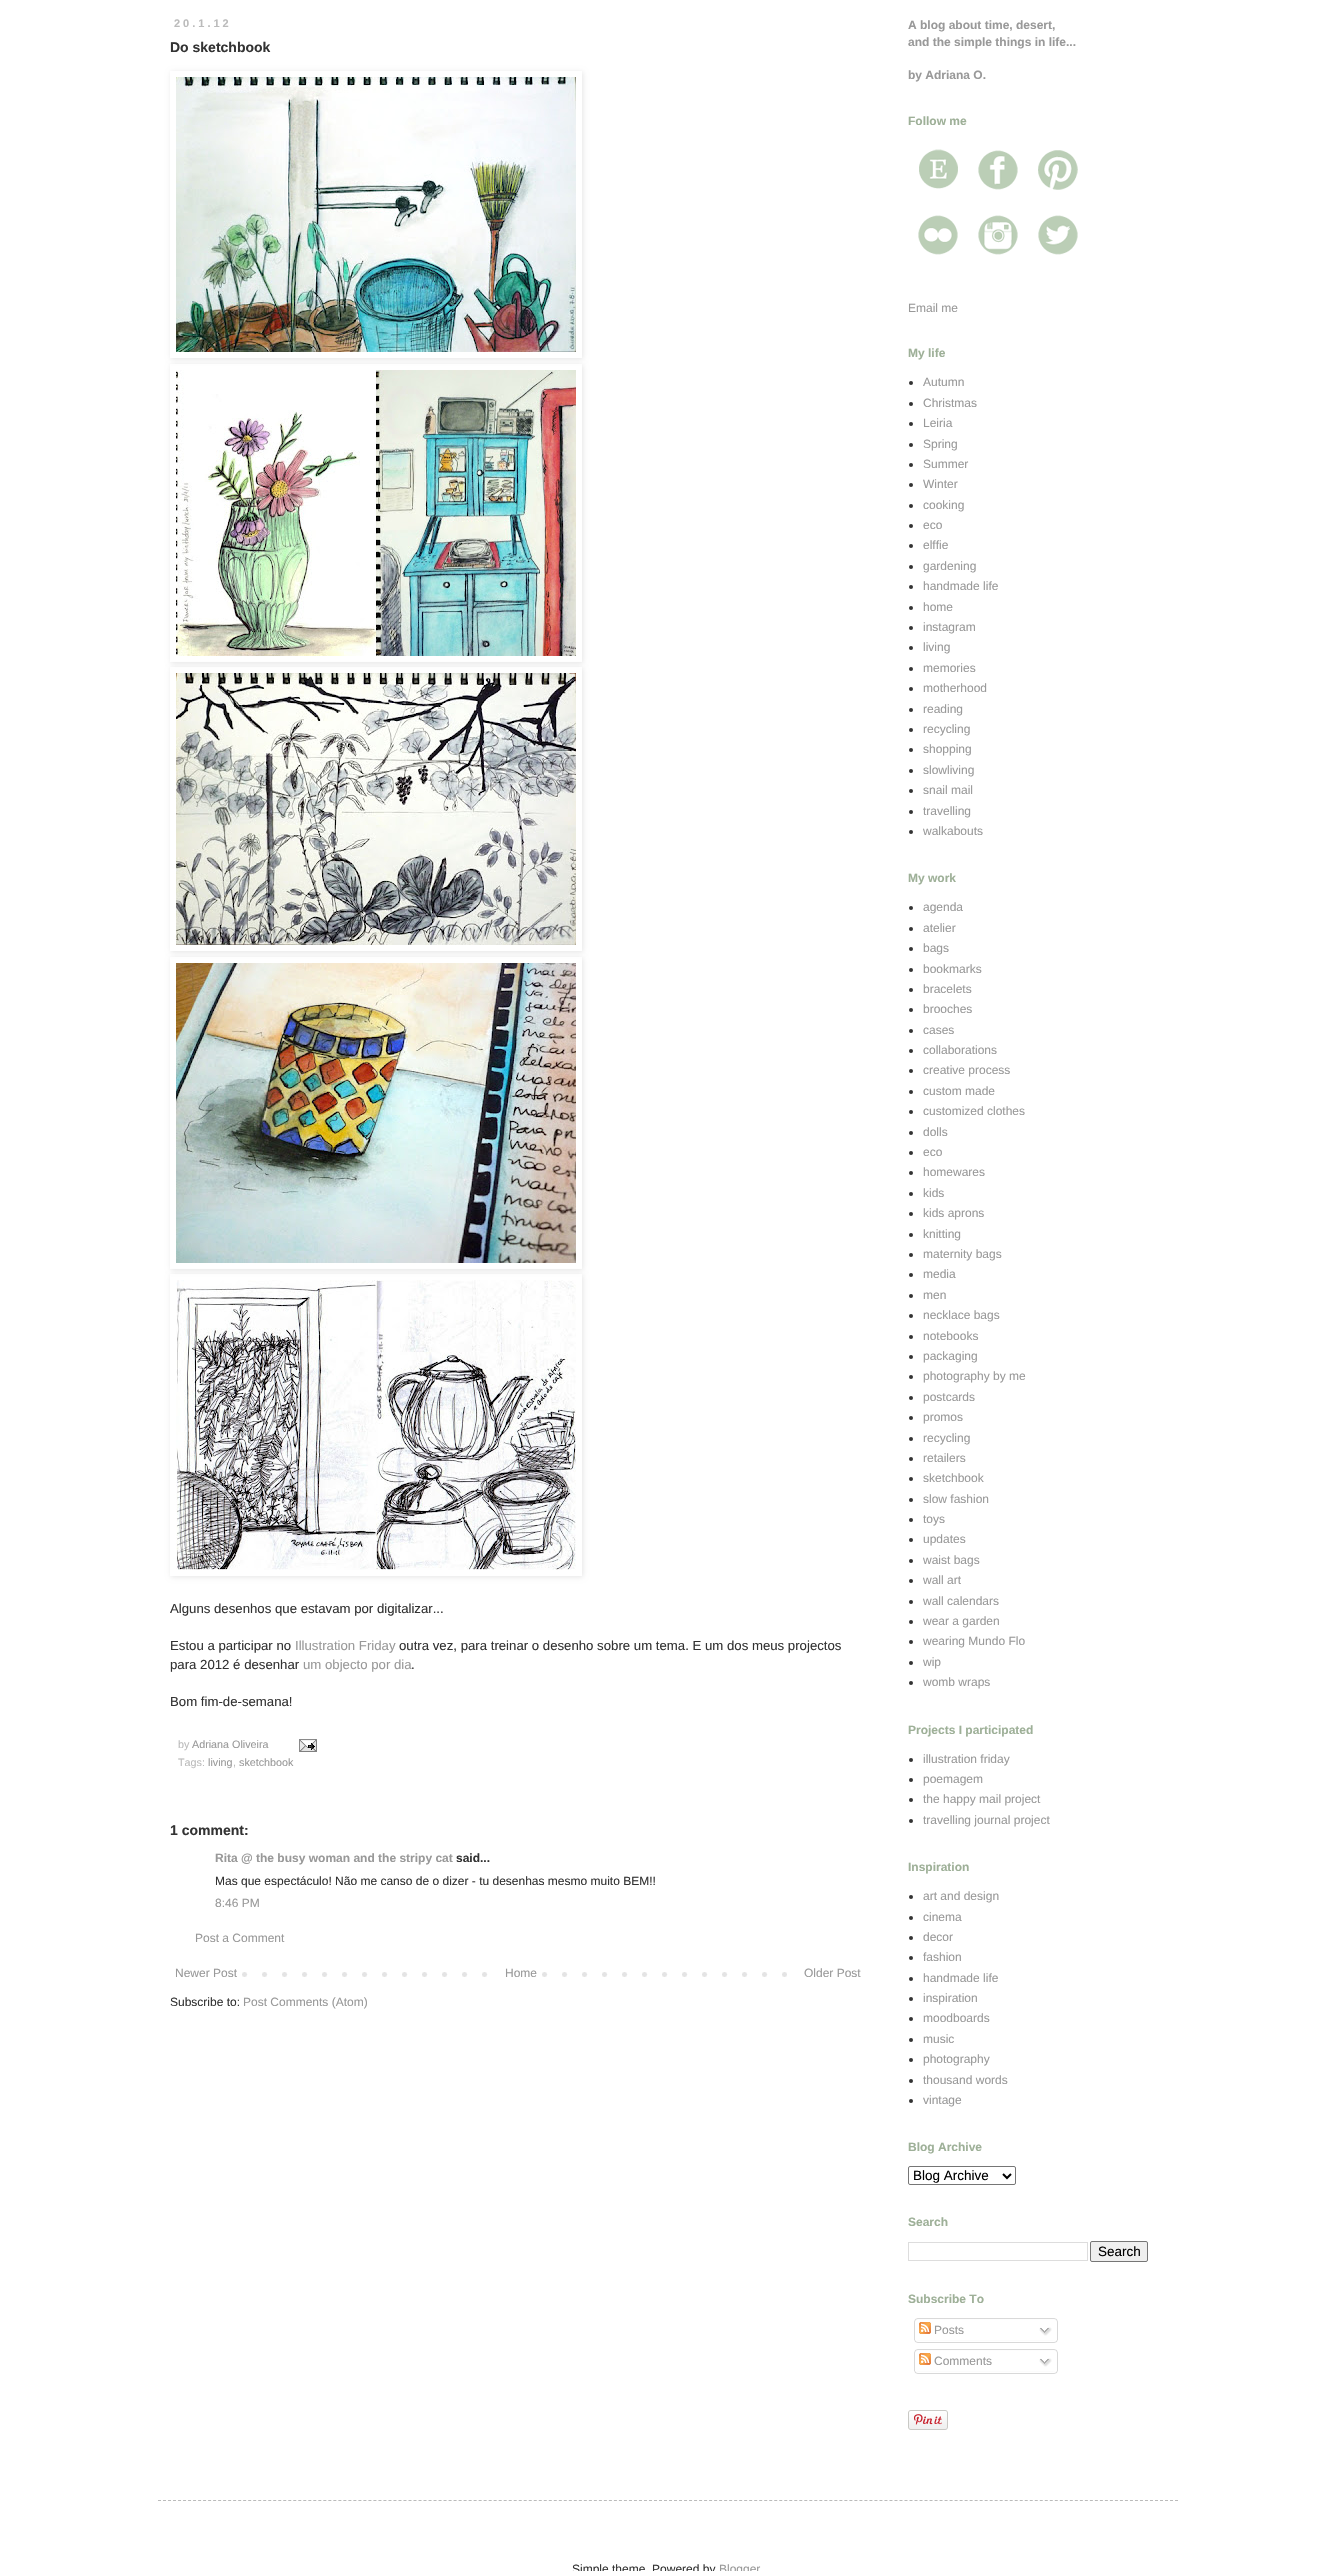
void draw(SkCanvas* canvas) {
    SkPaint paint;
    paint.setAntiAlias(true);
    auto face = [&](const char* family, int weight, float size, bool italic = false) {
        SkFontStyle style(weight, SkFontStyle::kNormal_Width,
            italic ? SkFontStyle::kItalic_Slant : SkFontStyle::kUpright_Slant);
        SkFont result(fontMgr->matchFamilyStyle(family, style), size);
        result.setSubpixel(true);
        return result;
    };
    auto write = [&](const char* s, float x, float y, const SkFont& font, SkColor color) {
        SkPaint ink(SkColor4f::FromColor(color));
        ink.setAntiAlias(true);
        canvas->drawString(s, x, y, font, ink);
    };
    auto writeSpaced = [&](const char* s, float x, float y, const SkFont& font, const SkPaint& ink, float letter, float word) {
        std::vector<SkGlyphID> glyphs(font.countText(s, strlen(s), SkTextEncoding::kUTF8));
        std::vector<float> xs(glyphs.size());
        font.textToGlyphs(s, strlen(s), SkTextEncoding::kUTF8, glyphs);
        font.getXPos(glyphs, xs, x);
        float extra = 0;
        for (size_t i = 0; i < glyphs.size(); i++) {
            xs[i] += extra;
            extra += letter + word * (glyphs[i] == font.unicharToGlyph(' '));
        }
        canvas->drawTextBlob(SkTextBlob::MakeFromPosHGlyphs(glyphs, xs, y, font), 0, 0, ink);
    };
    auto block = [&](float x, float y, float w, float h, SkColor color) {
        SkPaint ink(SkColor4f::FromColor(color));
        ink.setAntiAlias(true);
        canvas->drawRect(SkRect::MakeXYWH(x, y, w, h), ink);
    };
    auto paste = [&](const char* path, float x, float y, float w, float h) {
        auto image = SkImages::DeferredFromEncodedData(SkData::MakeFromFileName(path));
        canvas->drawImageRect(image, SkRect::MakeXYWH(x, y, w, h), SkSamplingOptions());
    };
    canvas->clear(SK_ColorWHITE);
    auto kFont1 = face("Liberation Sans", 700, 11);
    paint.setColor(SkColorSetRGB(187, 187, 187));
    writeSpaced("20.1.12", 174, 27, kFont1, paint, 3, 0);
    auto kFont2 = face("Liberation Sans", 700, 14);
    write("Do sketchbook", 170, 52, kFont2, SkColorSetRGB(51, 51, 51));
    canvas->save();
    canvas->clipPath(SkPathBuilder(SkPathFillType::kEvenOdd).moveTo(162, 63).lineTo(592, 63).lineTo(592, 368).lineTo(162, 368).close().moveTo(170, 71).lineTo(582, 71).lineTo(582, 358).lineTo(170, 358).close().detach(), true);
    paint.setColor(SkColorSetARGB(26, 0, 0, 0));
    paint.setMaskFilter(SkMaskFilter::MakeBlur(kNormal_SkBlurStyle, 2.5f));
    canvas->drawRect(SkRect::MakeXYWH(171, 72, 412, 287), paint);
    paint.setMaskFilter(nullptr);
    canvas->restore();
    paste("pic1.png", 176, 77, 400, 275);
    canvas->save();
    canvas->clipPath(SkPathBuilder(SkPathFillType::kEvenOdd).moveTo(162, 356).lineTo(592, 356).lineTo(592, 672).lineTo(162, 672).close().moveTo(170, 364).lineTo(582, 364).lineTo(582, 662).lineTo(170, 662).close().detach(), true);
    paint.setMaskFilter(SkMaskFilter::MakeBlur(kNormal_SkBlurStyle, 2.5f));
    canvas->drawRect(SkRect::MakeXYWH(171, 365, 412, 298), paint);
    paint.setMaskFilter(nullptr);
    canvas->restore();
    paste("pic2.png", 176, 370, 400, 286);
    canvas->save();
    canvas->clipPath(SkPathBuilder(SkPathFillType::kEvenOdd).moveTo(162, 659).lineTo(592, 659).lineTo(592, 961).lineTo(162, 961).close().moveTo(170, 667).lineTo(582, 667).lineTo(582, 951).lineTo(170, 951).close().detach(), true);
    paint.setMaskFilter(SkMaskFilter::MakeBlur(kNormal_SkBlurStyle, 2.5f));
    canvas->drawRect(SkRect::MakeXYWH(171, 668, 412, 284), paint);
    paint.setMaskFilter(nullptr);
    canvas->restore();
    paste("pic3.png", 176, 673, 400, 272);
    canvas->save();
    canvas->clipPath(SkPathBuilder(SkPathFillType::kEvenOdd).moveTo(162, 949).lineTo(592, 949).lineTo(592, 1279).lineTo(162, 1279).close().moveTo(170, 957).lineTo(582, 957).lineTo(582, 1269).lineTo(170, 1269).close().detach(), true);
    paint.setMaskFilter(SkMaskFilter::MakeBlur(kNormal_SkBlurStyle, 2.5f));
    canvas->drawRect(SkRect::MakeXYWH(171, 958, 412, 312), paint);
    paint.setMaskFilter(nullptr);
    canvas->restore();
    paste("pic4.png", 176, 963, 400, 300);
    canvas->save();
    canvas->clipPath(SkPathBuilder(SkPathFillType::kEvenOdd).moveTo(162, 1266).lineTo(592, 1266).lineTo(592, 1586).lineTo(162, 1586).close().moveTo(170, 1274).lineTo(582, 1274).lineTo(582, 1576).lineTo(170, 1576).close().detach(), true);
    paint.setMaskFilter(SkMaskFilter::MakeBlur(kNormal_SkBlurStyle, 2.5f));
    canvas->drawRect(SkRect::MakeXYWH(171, 1275, 412, 302), paint);
    paint.setMaskFilter(nullptr);
    canvas->restore();
    paste("pic5.png", 176, 1280, 400, 290);
    auto kFont3 = face("Liberation Sans", 400, 13.2f);
    write("Alguns desenhos que estavam por digitalizar...", 170, 1613, kFont3, SkColorSetRGB(51, 51, 51));
    write("Estou a participar no", 170, 1650, kFont3, SkColorSetRGB(51, 51, 51));
    write("Illustration Friday", 295, 1650, kFont3, SkColorSetRGB(153, 153, 153));
    write("outra vez, para treinar o desenho sobre um tema. E um dos meus projectos", 399, 1650, kFont3, SkColorSetRGB(51, 51, 51));
    write("para 2012 é desenhar", 170, 1669, kFont3, SkColorSetRGB(51, 51, 51));
    write("um objecto por dia", 303, 1669, kFont3, SkColorSetRGB(153, 153, 153));
    write(".", 411, 1669, kFont3, SkColorSetRGB(51, 51, 51));
    write("Bom fim-de-semana!", 170, 1706, kFont3, SkColorSetRGB(51, 51, 51));
    auto kFont4 = face("Liberation Sans", 400, 10.75f);
    write("by", 178, 1748, kFont4, SkColorSetRGB(187, 187, 187));
    write("Adriana Oliveira", 192, 1748, kFont4, SkColorSetRGB(153, 153, 153));
    paste("pic6.png", 299, 1739, 18, 13);
    write("Tags:", 178, 1766, kFont4, SkColorSetRGB(187, 187, 187));
    write("living", 208, 1766, kFont4, SkColorSetRGB(153, 153, 153));
    write(",", 233, 1766, kFont4, SkColorSetRGB(187, 187, 187));
    write("sketchbook", 239, 1766, kFont4, SkColorSetRGB(153, 153, 153));
    write("1 comment:", 170, 1835, kFont2, SkColorSetRGB(51, 51, 51));
    auto kFont5 = face("Liberation Sans", 700, 12);
    write("Rita @ the busy woman and the stripy cat", 215, 1862, kFont5, SkColorSetRGB(153, 153, 153));
    write("said...", 456, 1862, kFont5, SkColorSetRGB(51, 51, 51));
    auto kFont6 = face("Liberation Sans", 400, 12);
    write("Mas que espectáculo! Não me canso de o dizer - tu desenhas mesmo muito BEM!!", 215, 1885, kFont6, SkColorSetRGB(51, 51, 51));
    write("8:46 PM", 215, 1907, kFont6, SkColorSetRGB(153, 153, 153));
    write("Post a Comment", 195, 1942, kFont6, SkColorSetRGB(153, 153, 153));
    paste("pic7.png", 242, 1972, 545, 5);
    write("Newer Post", 175, 1977, kFont6, SkColorSetRGB(153, 153, 153));
    block(502, 1972, 26, 5, SK_ColorWHITE);
    write("Home", 505, 1977, kFont6, SkColorSetRGB(153, 153, 153));
    write("Older Post", 804, 1977, kFont6, SkColorSetRGB(153, 153, 153));
    write("Subscribe to:", 170, 2006, kFont6, SkColorSetRGB(51, 51, 51));
    write("Post Comments (Atom)", 243, 2006, kFont6, SkColorSetRGB(153, 153, 153));
    write("A blog about time, desert,", 908, 29, kFont5, SkColorSetRGB(153, 153, 153));
    write("and the simple things in life...", 908, 46, kFont5, SkColorSetRGB(153, 153, 153));
    write("by Adriana O.", 908, 79, kFont5, SkColorSetRGB(153, 153, 153));
    write("Follow me", 908, 125, kFont5, SkColorSetRGB(158, 176, 152));
    paste("pic8.png", 919, 149, 39, 40);
    paste("pic9.png", 978, 150, 40, 40);
    paste("pic10.png", 1038, 150, 40, 40);
    paste("pic11.png", 918, 215, 40, 40);
    paste("pic12.png", 978, 215, 40, 40);
    paste("pic13.png", 1038, 215, 40, 40);
    write("Email me", 908, 312, kFont6, SkColorSetRGB(153, 153, 153));
    write("My life", 908, 357, kFont5, SkColorSetRGB(158, 176, 152));
    paint.setColor(SkColorSetRGB(51, 51, 51));
    canvas->drawCircle(911, 383, 2, paint);
    write("Autumn", 923, 386, kFont6, SkColorSetRGB(153, 153, 153));
    canvas->drawCircle(911, 404, 2, paint);
    write("Christmas", 923, 407, kFont6, SkColorSetRGB(153, 153, 153));
    canvas->drawCircle(911, 424, 2, paint);
    write("Leiria", 923, 427, kFont6, SkColorSetRGB(153, 153, 153));
    canvas->drawCircle(911, 445, 2, paint);
    write("Spring", 923, 448, kFont6, SkColorSetRGB(153, 153, 153));
    canvas->drawCircle(911, 465, 2, paint);
    write("Summer", 923, 468, kFont6, SkColorSetRGB(153, 153, 153));
    canvas->drawCircle(911, 485, 2, paint);
    write("Winter", 923, 488, kFont6, SkColorSetRGB(153, 153, 153));
    canvas->drawCircle(911, 506, 2, paint);
    write("cooking", 923, 509, kFont6, SkColorSetRGB(153, 153, 153));
    canvas->drawCircle(911, 526, 2, paint);
    write("eco", 923, 529, kFont6, SkColorSetRGB(153, 153, 153));
    canvas->drawCircle(911, 546, 2, paint);
    write("elffie", 923, 549, kFont6, SkColorSetRGB(153, 153, 153));
    canvas->drawCircle(911, 567, 2, paint);
    write("gardening", 923, 570, kFont6, SkColorSetRGB(153, 153, 153));
    canvas->drawCircle(911, 587, 2, paint);
    write("handmade life", 923, 590, kFont6, SkColorSetRGB(153, 153, 153));
    canvas->drawCircle(911, 608, 2, paint);
    write("home", 923, 611, kFont6, SkColorSetRGB(153, 153, 153));
    canvas->drawCircle(911, 628, 2, paint);
    write("instagram", 923, 631, kFont6, SkColorSetRGB(153, 153, 153));
    canvas->drawCircle(911, 648, 2, paint);
    write("living", 923, 651, kFont6, SkColorSetRGB(153, 153, 153));
    canvas->drawCircle(911, 669, 2, paint);
    write("memories", 923, 672, kFont6, SkColorSetRGB(153, 153, 153));
    canvas->drawCircle(911, 689, 2, paint);
    write("motherhood", 923, 692, kFont6, SkColorSetRGB(153, 153, 153));
    canvas->drawCircle(911, 710, 2, paint);
    write("reading", 923, 713, kFont6, SkColorSetRGB(153, 153, 153));
    canvas->drawCircle(911, 730, 2, paint);
    write("recycling", 923, 733, kFont6, SkColorSetRGB(153, 153, 153));
    canvas->drawCircle(911, 750, 2, paint);
    write("shopping", 923, 753, kFont6, SkColorSetRGB(153, 153, 153));
    canvas->drawCircle(911, 771, 2, paint);
    write("slowliving", 923, 774, kFont6, SkColorSetRGB(153, 153, 153));
    canvas->drawCircle(911, 791, 2, paint);
    write("snail mail", 923, 794, kFont6, SkColorSetRGB(153, 153, 153));
    canvas->drawCircle(911, 812, 2, paint);
    write("travelling", 923, 815, kFont6, SkColorSetRGB(153, 153, 153));
    canvas->drawCircle(911, 832, 2, paint);
    write("walkabouts", 923, 835, kFont6, SkColorSetRGB(153, 153, 153));
    write("My work", 908, 882, kFont5, SkColorSetRGB(158, 176, 152));
    canvas->drawCircle(911, 908, 2, paint);
    write("agenda", 923, 911, kFont6, SkColorSetRGB(153, 153, 153));
    canvas->drawCircle(911, 929, 2, paint);
    write("atelier", 923, 932, kFont6, SkColorSetRGB(153, 153, 153));
    canvas->drawCircle(911, 949, 2, paint);
    write("bags", 923, 952, kFont6, SkColorSetRGB(153, 153, 153));
    canvas->drawCircle(911, 970, 2, paint);
    write("bookmarks", 923, 973, kFont6, SkColorSetRGB(153, 153, 153));
    canvas->drawCircle(911, 990, 2, paint);
    write("bracelets", 923, 993, kFont6, SkColorSetRGB(153, 153, 153));
    canvas->drawCircle(911, 1010, 2, paint);
    write("brooches", 923, 1013, kFont6, SkColorSetRGB(153, 153, 153));
    canvas->drawCircle(911, 1031, 2, paint);
    write("cases", 923, 1034, kFont6, SkColorSetRGB(153, 153, 153));
    canvas->drawCircle(911, 1051, 2, paint);
    write("collaborations", 923, 1054, kFont6, SkColorSetRGB(153, 153, 153));
    canvas->drawCircle(911, 1071, 2, paint);
    write("creative process", 923, 1074, kFont6, SkColorSetRGB(153, 153, 153));
    canvas->drawCircle(911, 1092, 2, paint);
    write("custom made", 923, 1095, kFont6, SkColorSetRGB(153, 153, 153));
    canvas->drawCircle(911, 1112, 2, paint);
    write("customized clothes", 923, 1115, kFont6, SkColorSetRGB(153, 153, 153));
    canvas->drawCircle(911, 1133, 2, paint);
    write("dolls", 923, 1136, kFont6, SkColorSetRGB(153, 153, 153));
    canvas->drawCircle(911, 1153, 2, paint);
    write("eco", 923, 1156, kFont6, SkColorSetRGB(153, 153, 153));
    canvas->drawCircle(911, 1173, 2, paint);
    write("homewares", 923, 1176, kFont6, SkColorSetRGB(153, 153, 153));
    canvas->drawCircle(911, 1194, 2, paint);
    write("kids", 923, 1197, kFont6, SkColorSetRGB(153, 153, 153));
    canvas->drawCircle(911, 1214, 2, paint);
    write("kids aprons", 923, 1217, kFont6, SkColorSetRGB(153, 153, 153));
    canvas->drawCircle(911, 1235, 2, paint);
    write("knitting", 923, 1238, kFont6, SkColorSetRGB(153, 153, 153));
    canvas->drawCircle(911, 1255, 2, paint);
    write("maternity bags", 923, 1258, kFont6, SkColorSetRGB(153, 153, 153));
    canvas->drawCircle(911, 1275, 2, paint);
    write("media", 923, 1278, kFont6, SkColorSetRGB(153, 153, 153));
    canvas->drawCircle(911, 1296, 2, paint);
    write("men", 923, 1299, kFont6, SkColorSetRGB(153, 153, 153));
    canvas->drawCircle(911, 1316, 2, paint);
    write("necklace bags", 923, 1319, kFont6, SkColorSetRGB(153, 153, 153));
    canvas->drawCircle(911, 1337, 2, paint);
    write("notebooks", 923, 1340, kFont6, SkColorSetRGB(153, 153, 153));
    canvas->drawCircle(911, 1357, 2, paint);
    write("packaging", 923, 1360, kFont6, SkColorSetRGB(153, 153, 153));
    canvas->drawCircle(911, 1377, 2, paint);
    write("photography by me", 923, 1380, kFont6, SkColorSetRGB(153, 153, 153));
    canvas->drawCircle(911, 1398, 2, paint);
    write("postcards", 923, 1401, kFont6, SkColorSetRGB(153, 153, 153));
    canvas->drawCircle(911, 1418, 2, paint);
    write("promos", 923, 1421, kFont6, SkColorSetRGB(153, 153, 153));
    canvas->drawCircle(911, 1439, 2, paint);
    write("recycling", 923, 1442, kFont6, SkColorSetRGB(153, 153, 153));
    canvas->drawCircle(911, 1459, 2, paint);
    write("retailers", 923, 1462, kFont6, SkColorSetRGB(153, 153, 153));
    canvas->drawCircle(911, 1479, 2, paint);
    write("sketchbook", 923, 1482, kFont6, SkColorSetRGB(153, 153, 153));
    canvas->drawCircle(911, 1500, 2, paint);
    write("slow fashion", 923, 1503, kFont6, SkColorSetRGB(153, 153, 153));
    canvas->drawCircle(911, 1520, 2, paint);
    write("toys", 923, 1523, kFont6, SkColorSetRGB(153, 153, 153));
    canvas->drawCircle(911, 1540, 2, paint);
    write("updates", 923, 1543, kFont6, SkColorSetRGB(153, 153, 153));
    canvas->drawCircle(911, 1561, 2, paint);
    write("waist bags", 923, 1564, kFont6, SkColorSetRGB(153, 153, 153));
    canvas->drawCircle(911, 1581, 2, paint);
    write("wall art", 923, 1584, kFont6, SkColorSetRGB(153, 153, 153));
    canvas->drawCircle(911, 1602, 2, paint);
    write("wall calendars", 923, 1605, kFont6, SkColorSetRGB(153, 153, 153));
    canvas->drawCircle(911, 1622, 2, paint);
    write("wear a garden", 923, 1625, kFont6, SkColorSetRGB(153, 153, 153));
    canvas->drawCircle(911, 1642, 2, paint);
    write("wearing Mundo Flo", 923, 1645, kFont6, SkColorSetRGB(153, 153, 153));
    canvas->drawCircle(911, 1663, 2, paint);
    write("wip", 923, 1666, kFont6, SkColorSetRGB(153, 153, 153));
    canvas->drawCircle(911, 1683, 2, paint);
    write("womb wraps", 923, 1686, kFont6, SkColorSetRGB(153, 153, 153));
    write("Projects I participated", 908, 1734, kFont5, SkColorSetRGB(158, 176, 152));
    canvas->drawCircle(911, 1760, 2, paint);
    write("illustration friday", 923, 1763, kFont6, SkColorSetRGB(153, 153, 153));
    canvas->drawCircle(911, 1780, 2, paint);
    write("poemagem", 923, 1783, kFont6, SkColorSetRGB(153, 153, 153));
    canvas->drawCircle(911, 1800, 2, paint);
    write("the happy mail project", 923, 1803, kFont6, SkColorSetRGB(153, 153, 153));
    canvas->drawCircle(911, 1821, 2, paint);
    write("travelling journal project", 923, 1824, kFont6, SkColorSetRGB(153, 153, 153));
    write("Inspiration", 908, 1871, kFont5, SkColorSetRGB(158, 176, 152));
    canvas->drawCircle(911, 1897, 2, paint);
    write("art and design", 923, 1900, kFont6, SkColorSetRGB(153, 153, 153));
    canvas->drawCircle(911, 1918, 2, paint);
    write("cinema", 923, 1921, kFont6, SkColorSetRGB(153, 153, 153));
    canvas->drawCircle(911, 1938, 2, paint);
    write("decor", 923, 1941, kFont6, SkColorSetRGB(153, 153, 153));
    canvas->drawCircle(911, 1958, 2, paint);
    write("fashion", 923, 1961, kFont6, SkColorSetRGB(153, 153, 153));
    canvas->drawCircle(911, 1979, 2, paint);
    write("handmade life", 923, 1982, kFont6, SkColorSetRGB(153, 153, 153));
    canvas->drawCircle(911, 1999, 2, paint);
    write("inspiration", 923, 2002, kFont6, SkColorSetRGB(153, 153, 153));
    canvas->drawCircle(911, 2019, 2, paint);
    write("moodboards", 923, 2022, kFont6, SkColorSetRGB(153, 153, 153));
    canvas->drawCircle(911, 2040, 2, paint);
    write("music", 923, 2043, kFont6, SkColorSetRGB(153, 153, 153));
    canvas->drawCircle(911, 2060, 2, paint);
    write("photography", 923, 2063, kFont6, SkColorSetRGB(153, 153, 153));
    canvas->drawCircle(911, 2081, 2, paint);
    write("thousand words", 923, 2084, kFont6, SkColorSetRGB(153, 153, 153));
    canvas->drawCircle(911, 2101, 2, paint);
    write("vintage", 923, 2104, kFont6, SkColorSetRGB(153, 153, 153));
    write("Blog Archive", 908, 2151, kFont5, SkColorSetRGB(158, 176, 152));
    paint.setStyle(SkPaint::kStroke_Style);
    paint.setStrokeWidth(1);
    paint.setColor(SkColorSetRGB(118, 118, 118));
    canvas->drawRoundRect(SkRect::MakeXYWH(908.5f, 2166.5f, 107, 18), 1.5f, 1.5f, paint);
    paint.setStrokeWidth(2);
    paint.setColor(SK_ColorBLACK);
    canvas->drawPath(SkPathBuilder().moveTo(1003, 2174).lineTo(1007, 2178).lineTo(1011, 2174).detach(), paint);
    auto kFont7 = face("Liberation Sans", 400, 13.5f);
    write("Blog Archive", 913, 2180, kFont7, SK_ColorBLACK);
    write("Search", 908, 2226, kFont5, SkColorSetRGB(158, 176, 152));
    paint.setStrokeWidth(1);
    paint.setColor(SkColorSetRGB(221, 221, 221));
    canvas->drawRect(SkRect::MakeXYWH(908.5f, 2242.5f, 179, 18), paint);
    paint.setStyle(SkPaint::kFill_Style);
    paint.setColor(SkColorSetRGB(239, 239, 239));
    canvas->drawRoundRect(SkRect::MakeXYWH(1090.5f, 2241.5f, 57, 20), 1.5f, 1.5f, paint);
    paint.setStyle(SkPaint::kStroke_Style);
    paint.setColor(SkColorSetRGB(118, 118, 118));
    canvas->drawRoundRect(SkRect::MakeXYWH(1090.5f, 2241.5f, 57, 20), 1.5f, 1.5f, paint);
    write("Search", 1098, 2256, kFont7, SK_ColorBLACK);
    write("Subscribe To", 908, 2303, kFont5, SkColorSetRGB(158, 176, 152));
    paste("pic14.png", 914, 2318, 144, 22);
    paste("pic15.png", 919, 2322, 12, 12);
    write("Posts", 934, 2334, kFont6, SkColorSetRGB(153, 153, 153));
    paste("pic16.png", 1039, 2327, 13, 9);
    paste("pic17.png", 914, 2340, 144, 3);
    paste("pic14.png", 914, 2349, 144, 22);
    paste("pic15.png", 919, 2353, 12, 12);
    write("Comments", 934, 2365, kFont6, SkColorSetRGB(153, 153, 153));
    paste("pic16.png", 1039, 2358, 13, 9);
    paste("pic17.png", 914, 2371, 144, 3);
    paste("pic18.png", 908, 2410, 40, 20);
    paint.setColor(SkColorSetRGB(187, 187, 187));
    paint.setPathEffect(SkDashPathEffect::Make({{3, 2.01f}}, 0));
    canvas->drawPath(SkPathBuilder().moveTo(158, 2500.5f).lineTo(1178, 2500.5f).detach(), paint);
    paint.setPathEffect(nullptr);
    write("Simple theme. Powered by", 572, 2573, kFont6, SkColorSetRGB(51, 51, 51));
    write("Blogger", 719, 2573, kFont6, SkColorSetRGB(153, 153, 153));
}
